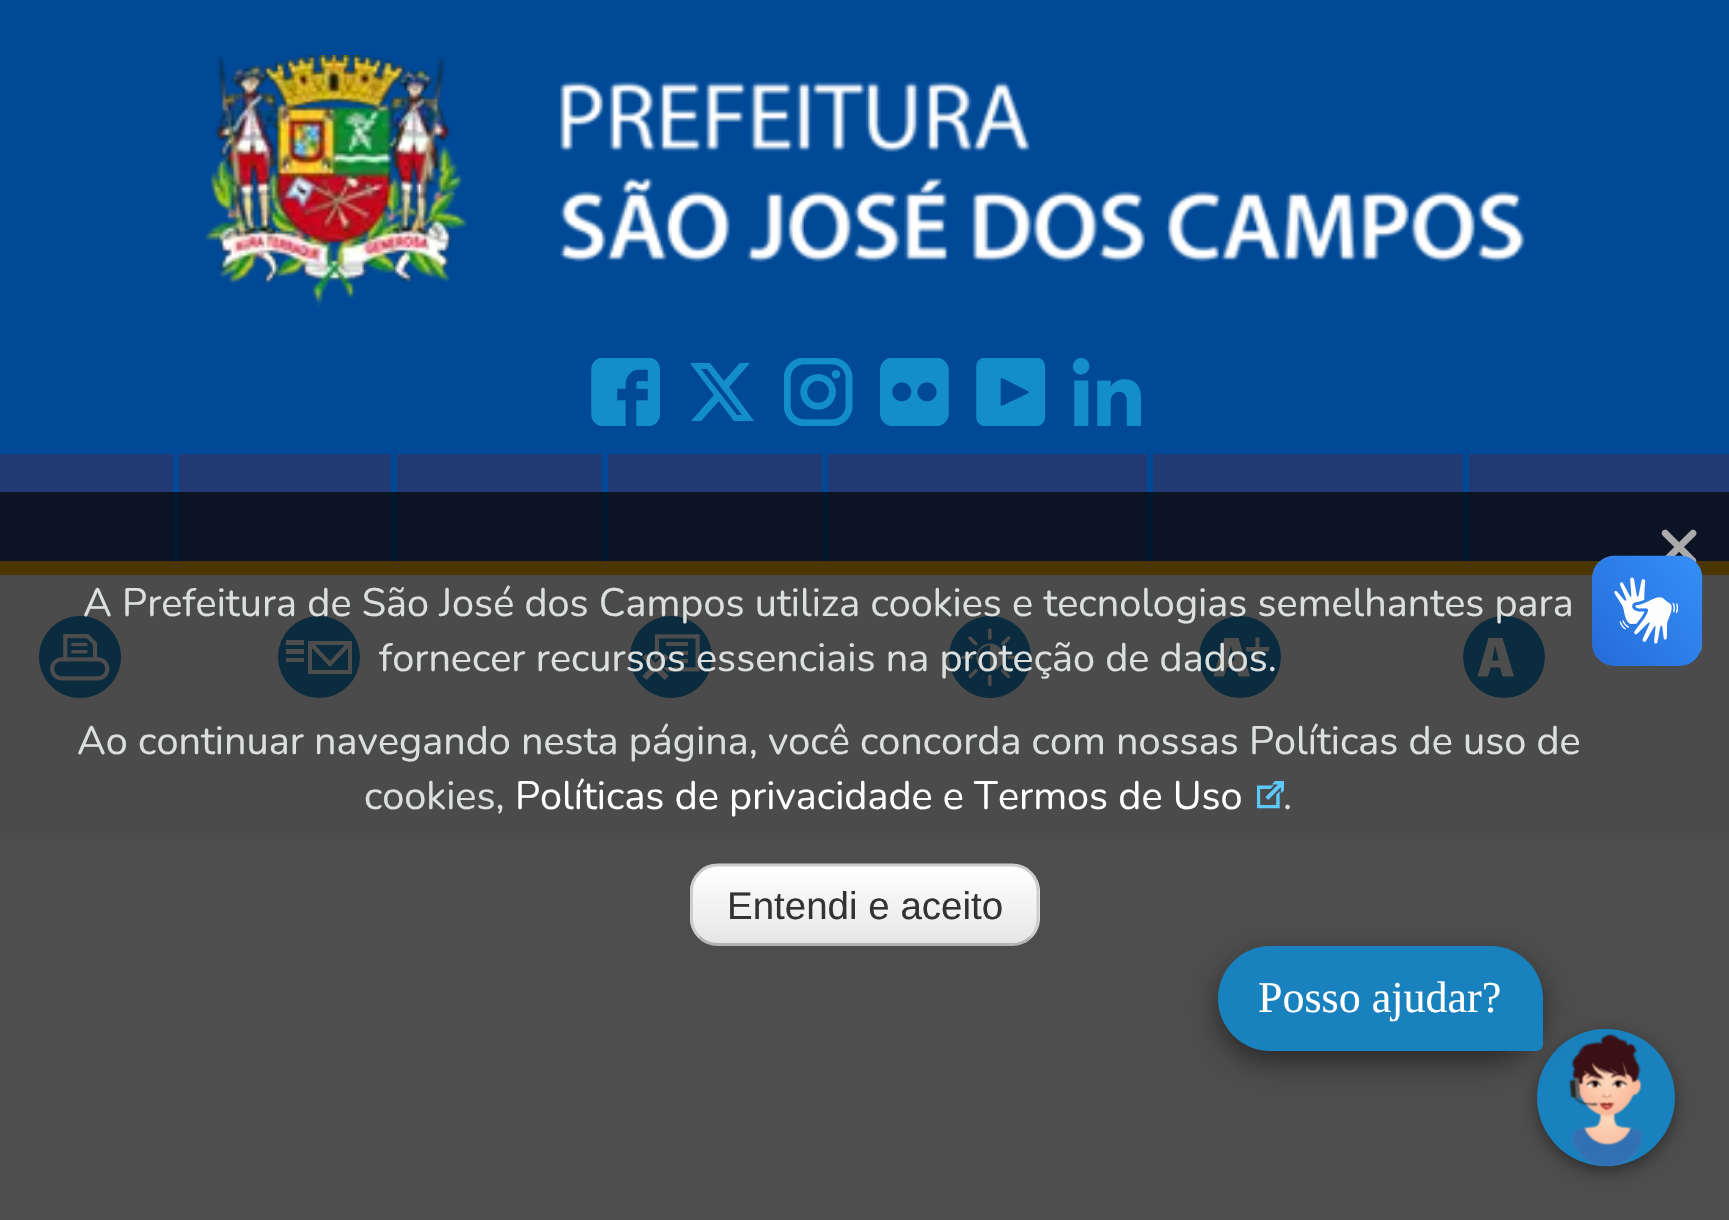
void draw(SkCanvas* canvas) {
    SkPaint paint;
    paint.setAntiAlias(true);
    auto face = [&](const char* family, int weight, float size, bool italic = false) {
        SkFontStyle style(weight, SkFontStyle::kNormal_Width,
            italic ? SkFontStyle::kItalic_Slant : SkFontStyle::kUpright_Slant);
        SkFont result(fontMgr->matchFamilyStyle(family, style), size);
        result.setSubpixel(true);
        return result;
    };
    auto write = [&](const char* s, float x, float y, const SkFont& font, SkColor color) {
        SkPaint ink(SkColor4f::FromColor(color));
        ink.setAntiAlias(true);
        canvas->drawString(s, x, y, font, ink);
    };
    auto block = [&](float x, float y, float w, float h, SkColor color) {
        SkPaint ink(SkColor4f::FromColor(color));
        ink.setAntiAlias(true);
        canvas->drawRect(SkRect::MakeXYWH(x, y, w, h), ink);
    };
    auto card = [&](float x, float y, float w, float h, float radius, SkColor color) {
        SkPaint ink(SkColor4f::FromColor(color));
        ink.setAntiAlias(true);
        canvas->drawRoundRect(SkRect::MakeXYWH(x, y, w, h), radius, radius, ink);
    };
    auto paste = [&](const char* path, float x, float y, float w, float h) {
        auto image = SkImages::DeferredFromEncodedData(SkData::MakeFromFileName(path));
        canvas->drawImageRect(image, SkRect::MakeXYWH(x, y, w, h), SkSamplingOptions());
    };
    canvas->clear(SK_ColorWHITE);
    block(0, 0, 1729, 454, SkColorSetRGB(0, 73, 151));
    block(0, 561, 1729, 14, SkColorSetRGB(248, 175, 5));
    paste("pic1.png", 206, 55, 1319, 253);
    paste("pic2.png", 591, 358, 69, 68);
    paint.setColor(SkColorSetRGB(19, 142, 201));
    canvas->drawPath(SkPathBuilder().moveTo(740, 363).lineTo(750, 363).lineTo(729, 387).lineTo(754, 421).lineTo(734, 421).lineTo(719, 401).lineTo(701, 421).lineTo(691, 421).lineTo(714, 395).lineTo(690, 363).lineTo(710, 363).lineTo(724, 381).close().moveTo(737, 415).lineTo(742, 415).lineTo(707, 369).lineTo(701, 369).close().detach(), paint);
    paste("pic3.png", 784, 358, 69, 68);
    paste("pic4.png", 880, 358, 69, 68);
    paste("pic5.png", 976, 358, 69, 68);
    paste("pic6.png", 1073, 358, 68, 68);
    block(0, 454, 1729, 107, SkColorSetRGB(33, 58, 115));
    block(173, 454, 6, 107, SkColorSetRGB(0, 73, 151));
    block(391, 454, 6, 107, SkColorSetRGB(0, 73, 151));
    block(602, 454, 6, 107, SkColorSetRGB(0, 73, 151));
    block(822, 454, 6, 107, SkColorSetRGB(0, 73, 151));
    block(1147, 454, 6, 107, SkColorSetRGB(0, 73, 151));
    block(1463, 454, 6, 107, SkColorSetRGB(0, 73, 151));
    block(0, 575, 1729, 264, SkColorSetRGB(248, 248, 248));
    paste("pic10.png", 39, 616, 82, 82);
    paint.setColor(SkColorSetRGB(33, 140, 204));
    canvas->drawCircle(319, 657, 41, paint);
    paint.setColor(SK_ColorWHITE);
    canvas->drawPath(SkPathBuilder().moveTo(308, 641).lineTo(308, 674).lineTo(352, 674).lineTo(352, 641).close().moveTo(345, 645).lineTo(330, 661).lineTo(315, 645).close().moveTo(312, 670).lineTo(312, 648).lineTo(330, 667).lineTo(348, 648).lineTo(348, 670).close().detach(), paint);
    block(286, 640, 18, 5, SK_ColorWHITE);
    block(286, 649, 18, 5, SK_ColorWHITE);
    block(286, 658, 18, 4, SK_ColorWHITE);
    paste("pic11.png", 630, 616, 82, 82);
    paste("pic12.png", 949, 616, 82, 82);
    paint.setColor(SkColorSetRGB(33, 140, 204));
    canvas->drawCircle(1240, 657, 41, paint);
    paint.setColor(SK_ColorWHITE);
    canvas->drawPath(SkPathBuilder().moveTo(1226.5f, 667.5f).lineTo(1224, 676.5f).lineTo(1213.5f, 676.5f).lineTo(1224.5f, 638).lineTo(1238.5f, 638).lineTo(1250, 676.5f).lineTo(1238.5f, 676.5f).lineTo(1236, 667.5f).close().moveTo(1235, 660.5f).lineTo(1231, 645.5f).lineTo(1228, 660.5f).close().detach(), paint);
    canvas->drawPath(SkPathBuilder().moveTo(1259.5f, 637.5f).lineTo(1259.5f, 647).lineTo(1269, 647).lineTo(1269, 651.5f).lineTo(1259.5f, 651.5f).lineTo(1259.5f, 661).lineTo(1255.5f, 661).lineTo(1255.5f, 651.5f).lineTo(1246, 651.5f).lineTo(1246, 647).lineTo(1255.5f, 647).lineTo(1255.5f, 637.5f).close().detach(), paint);
    paint.setColor(SkColorSetRGB(33, 140, 204));
    canvas->drawCircle(1504, 657, 41, paint);
    paint.setColor(SK_ColorWHITE);
    canvas->drawPath(SkPathBuilder().moveTo(1490.5f, 667.5f).lineTo(1488, 676.5f).lineTo(1477.5f, 676.5f).lineTo(1488.5f, 638).lineTo(1502.5f, 638).lineTo(1514, 676.5f).lineTo(1502.5f, 676.5f).lineTo(1500, 667.5f).close().moveTo(1499, 660.5f).lineTo(1495, 645.5f).lineTo(1492, 660.5f).close().detach(), paint);
    block(0, 492, 1729, 728, SkColorSetARGB(179, 1, 1, 1));
    auto kFont1 = face("Nunito", 700, 77);
    write("×", 1656, 569, kFont1, SkColorSetRGB(170, 170, 170));
    auto kFont2 = face("Nunito", 400, 39.6f);
    write("A Prefeitura de São José dos Campos utiliza cookies e tecnologias semelhantes para", 83, 616, kFont2, SkColorSetRGB(219, 224, 223));
    write("fornecer recursos essenciais na proteção de dados.", 379, 671, kFont2, SkColorSetRGB(219, 224, 223));
    write("Ao continuar navegando nesta página, você concorda com nossas Políticas de uso de", 77, 754, kFont2, SkColorSetRGB(219, 224, 223));
    write("cookies,", 364, 809, kFont2, SkColorSetRGB(219, 224, 223));
    write("Políticas de privacidade e Termos de Uso", 515, 809, kFont2, SK_ColorWHITE);
    paste("pic7.png", 1257, 781, 27, 28);
    write(".", 1283, 809, kFont2, SkColorSetRGB(219, 224, 223));
    canvas->save();
    canvas->clipPath(SkPathBuilder().moveTo(718, 864).lineTo(1012, 864).cubicTo(1027.5f, 864, 1040, 876.5f, 1040, 892).lineTo(1040, 918).cubicTo(1040, 933.5f, 1027.5f, 946, 1012, 946).lineTo(718, 946).cubicTo(702.5f, 946, 690, 933.5f, 690, 918).lineTo(690, 892).cubicTo(690, 876.5f, 702.5f, 864, 718, 864).close().detach(), true);
    {
        const SkColor colors[] = {SK_ColorWHITE, SkColorSetRGB(230, 230, 230)};
        const float stops[] = {0, 1};
        const SkPoint ends[] = {{865, 866}, {865, 943}};
        paint.setShader(SkGradientShader::MakeLinear(ends, colors, stops, 2, SkTileMode::kClamp));
        paint.setAlpha(255);
    }
    canvas->drawRect(SkRect::MakeXYWH(690, 866, 350, 77), paint);
    canvas->restore();
    paint.setStyle(SkPaint::kStroke_Style);
    paint.setStrokeWidth(2.8f);
    paint.setShader(nullptr);
    paint.setColor(SkColorSetRGB(179, 179, 179));
    canvas->drawPath(SkPathBuilder().moveTo(1030.5f, 937).cubicTo(1025.5f, 942, 1019, 944.5f, 1012, 944.5f).lineTo(718, 944.5f).cubicTo(711, 944.5f, 704, 942, 699.5f, 937).detach(), paint);
    paint.setColor(SkColorSetRGB(204, 204, 204));
    canvas->drawPath(SkPathBuilder().moveTo(699.5f, 937).cubicTo(694.5f, 932, 691.5f, 925.5f, 691.5f, 918.5f).lineTo(691.5f, 891).cubicTo(691.5f, 884, 694.5f, 877.5f, 699.5f, 872.5f).cubicTo(704, 867.5f, 711, 865, 718, 865).lineTo(1012, 865).cubicTo(1019, 865, 1025.5f, 867.5f, 1030.5f, 872.5f).cubicTo(1035.5f, 877.5f, 1038, 884, 1038, 891).lineTo(1038, 918.5f).cubicTo(1038, 925.5f, 1035.5f, 932, 1030.5f, 937).detach(), paint);
    auto kFont3 = face("Liberation Sans", 400, 38.5f);
    write("Entendi e aceito", 727, 919, kFont3, SkColorSetRGB(51, 51, 51));
    paste("pic8.png", 1592, 555, 111, 111);
    paste("pic9.png", 1592, 556, 110, 110);
    paint.setStyle(SkPaint::kFill_Style);
    paint.setColor(SkColorSetARGB(102, 0, 0, 0));
    paint.setMaskFilter(SkMaskFilter::MakeBlur(kNormal_SkBlurStyle, 8));
    canvas->drawRoundRect(SkRect::MakeXYWH(1537, 1034, 138, 138), 69, 69, paint);
    paint.setMaskFilter(nullptr);
    card(1537, 1029, 138, 137, 68.5f, SkColorSetRGB(25, 129, 190));
    paste("pic13.png", 1568, 1033, 75, 134);
    paint.setColor(SkColorSetARGB(120, 0, 0, 0));
    paint.setMaskFilter(SkMaskFilter::MakeBlur(kNormal_SkBlurStyle, 14));
    canvas->drawRoundRect(SkRect::MakeXYWH(1218, 957, 325, 105), 52.5f, 52.5f, paint);
    paint.setMaskFilter(nullptr);
    paint.setColor(SkColorSetRGB(25, 129, 190));
    canvas->drawPath(SkPathBuilder().moveTo(1270.5f, 946).lineTo(1490.5f, 946).cubicTo(1519.5f, 946, 1543, 969.5f, 1543, 998.5f).lineTo(1543, 1044).cubicTo(1543, 1048, 1540, 1051, 1536, 1051).lineTo(1270.5f, 1051).cubicTo(1241.5f, 1051, 1218, 1027.5f, 1218, 998.5f).cubicTo(1218, 969.5f, 1241.5f, 946, 1270.5f, 946).close().detach(), paint);
    auto kFont4 = face("Liberation Serif", 400, 44);
    write("Posso ajudar?", 1258, 1012, kFont4, SK_ColorWHITE);
}
